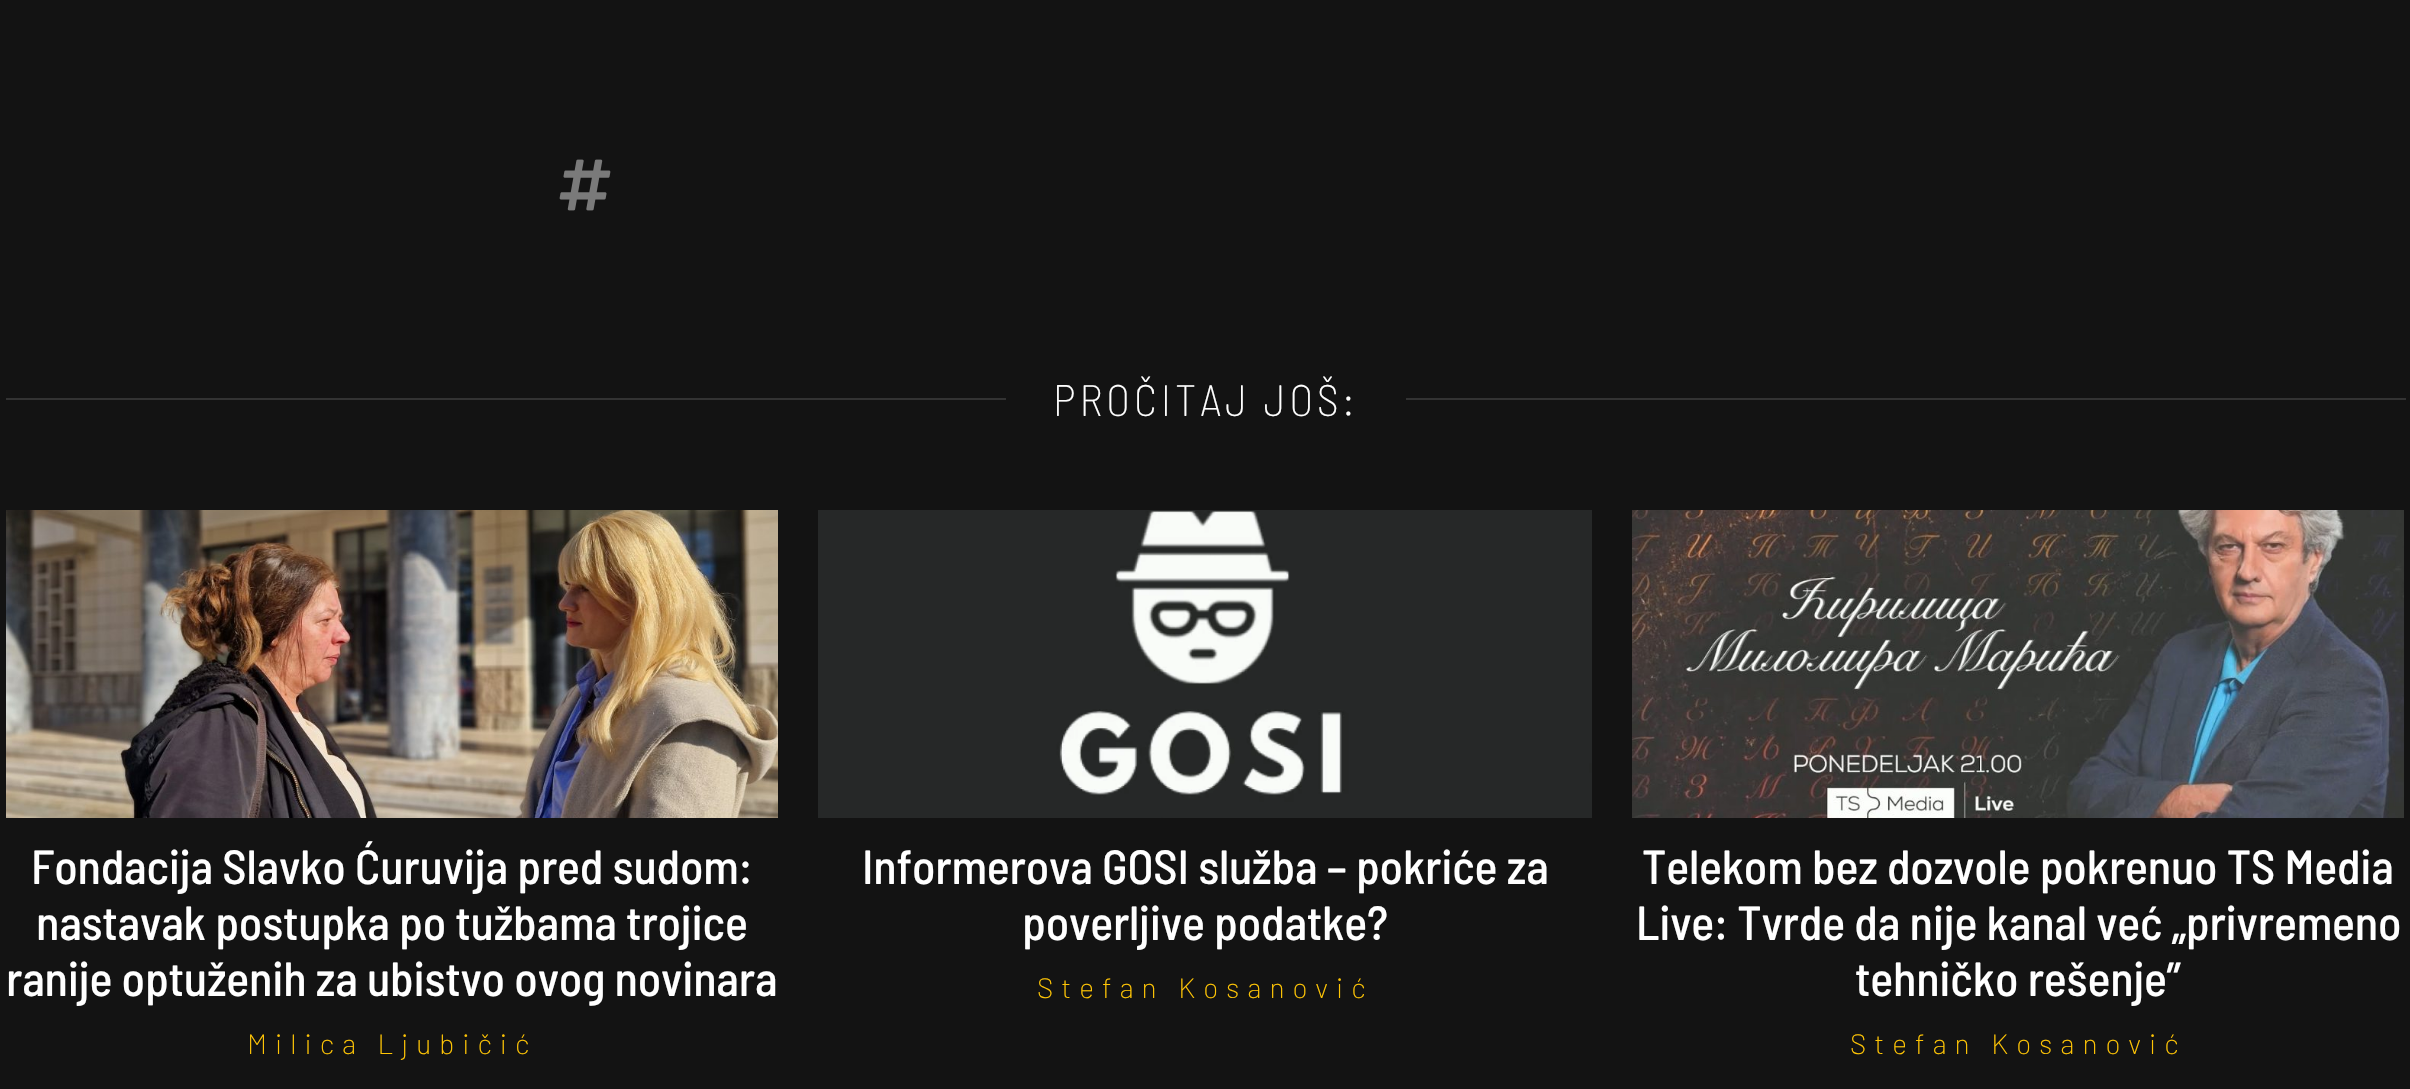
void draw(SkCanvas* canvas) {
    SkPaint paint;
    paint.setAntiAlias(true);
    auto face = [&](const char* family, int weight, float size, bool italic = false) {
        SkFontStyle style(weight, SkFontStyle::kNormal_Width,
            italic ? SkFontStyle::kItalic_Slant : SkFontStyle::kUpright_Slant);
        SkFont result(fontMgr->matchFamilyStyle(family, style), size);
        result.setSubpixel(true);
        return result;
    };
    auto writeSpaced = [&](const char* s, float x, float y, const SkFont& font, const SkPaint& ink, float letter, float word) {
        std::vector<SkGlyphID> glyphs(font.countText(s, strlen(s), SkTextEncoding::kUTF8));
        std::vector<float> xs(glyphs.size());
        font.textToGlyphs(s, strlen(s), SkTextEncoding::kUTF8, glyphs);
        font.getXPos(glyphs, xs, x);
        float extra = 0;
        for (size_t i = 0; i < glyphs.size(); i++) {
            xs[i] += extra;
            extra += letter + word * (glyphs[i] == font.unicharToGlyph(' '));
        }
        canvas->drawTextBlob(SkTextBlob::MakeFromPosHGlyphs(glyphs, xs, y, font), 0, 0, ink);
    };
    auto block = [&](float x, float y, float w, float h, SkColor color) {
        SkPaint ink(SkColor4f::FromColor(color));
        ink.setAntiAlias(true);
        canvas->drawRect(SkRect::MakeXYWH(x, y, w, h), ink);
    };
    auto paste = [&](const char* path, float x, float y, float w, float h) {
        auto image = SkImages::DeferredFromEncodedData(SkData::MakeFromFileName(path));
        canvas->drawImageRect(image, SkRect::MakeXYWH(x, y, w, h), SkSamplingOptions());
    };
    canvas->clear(SkColorSetRGB(19, 19, 19));
    paste("pic1.png", 559, 159, 52, 52);
    block(6, 398, 2400, 2, SkColorSetRGB(51, 51, 51));
    block(1006, 398, 400, 2, SkColorSetRGB(19, 19, 19));
    auto kFont1 = face("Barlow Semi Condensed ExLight", 200, 44);
    paint.setColor(SK_ColorWHITE);
    writeSpaced("PROČITAJ JOŠ:", 1053, 416, kFont1, paint, 4, 0);
    paste("pic2.png", 6, 510, 772, 308);
    auto kFont2 = face("Barlow Semi Condensed", 500, 48);
    writeSpaced("Fondacija Slavko Ćuruvija pred sudom:", 31, 884, kFont2, paint, -0.2f, 0);
    writeSpaced("nastavak postupka po tužbama trojice", 36, 940, kFont2, paint, -0.2f, 0);
    writeSpaced("ranije optuženih za ubistvo ovog novinara", 6, 996, kFont2, paint, -0.2f, 0);
    auto kFont3 = face("Barlow", 200, 28);
    paint.setColor(SkColorSetRGB(255, 197, 5));
    writeSpaced("Milica Ljubičić", 247, 1054, kFont3, paint, 8, 0);
    paste("pic3.png", 818, 510, 774, 308);
    paint.setColor(SK_ColorWHITE);
    writeSpaced("Informerova GOSI služba – pokriće za", 862, 884, kFont2, paint, -0.2f, 0);
    writeSpaced("poverljive podatke?", 1022, 940, kFont2, paint, -0.2f, 0);
    paint.setColor(SkColorSetRGB(255, 197, 5));
    writeSpaced("Stefan Kosanović", 1037, 998, kFont3, paint, 8, 0);
    paste("pic4.png", 1632, 510, 772, 308);
    paint.setColor(SK_ColorWHITE);
    writeSpaced("Telekom bez dozvole pokrenuo TS Media", 1642, 884, kFont2, paint, -0.2f, 0);
    writeSpaced("Live: Tvrde da nije kanal već „privremeno", 1636, 940, kFont2, paint, -0.2f, 0);
    writeSpaced("tehničko rešenje”", 1855, 996, kFont2, paint, -0.2f, 0);
    paint.setColor(SkColorSetRGB(255, 197, 5));
    writeSpaced("Stefan Kosanović", 1850, 1054, kFont3, paint, 8, 0);
}
